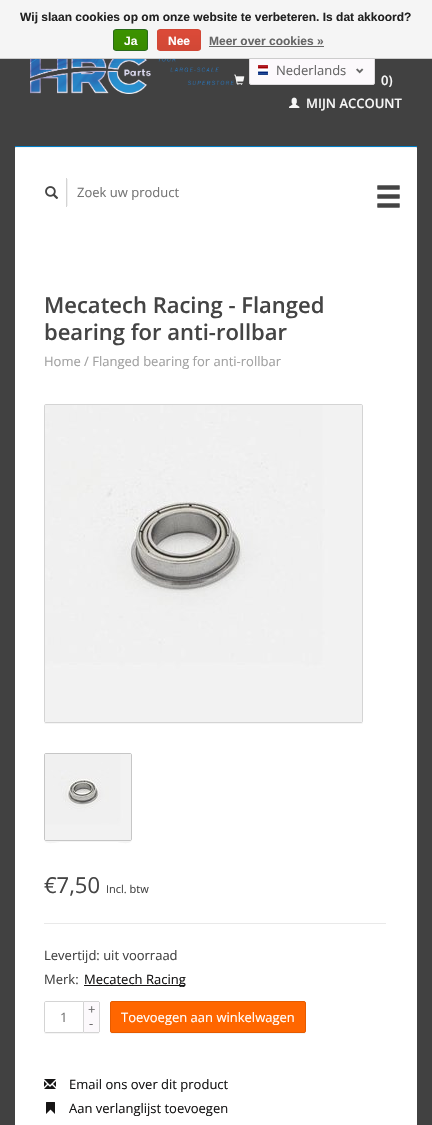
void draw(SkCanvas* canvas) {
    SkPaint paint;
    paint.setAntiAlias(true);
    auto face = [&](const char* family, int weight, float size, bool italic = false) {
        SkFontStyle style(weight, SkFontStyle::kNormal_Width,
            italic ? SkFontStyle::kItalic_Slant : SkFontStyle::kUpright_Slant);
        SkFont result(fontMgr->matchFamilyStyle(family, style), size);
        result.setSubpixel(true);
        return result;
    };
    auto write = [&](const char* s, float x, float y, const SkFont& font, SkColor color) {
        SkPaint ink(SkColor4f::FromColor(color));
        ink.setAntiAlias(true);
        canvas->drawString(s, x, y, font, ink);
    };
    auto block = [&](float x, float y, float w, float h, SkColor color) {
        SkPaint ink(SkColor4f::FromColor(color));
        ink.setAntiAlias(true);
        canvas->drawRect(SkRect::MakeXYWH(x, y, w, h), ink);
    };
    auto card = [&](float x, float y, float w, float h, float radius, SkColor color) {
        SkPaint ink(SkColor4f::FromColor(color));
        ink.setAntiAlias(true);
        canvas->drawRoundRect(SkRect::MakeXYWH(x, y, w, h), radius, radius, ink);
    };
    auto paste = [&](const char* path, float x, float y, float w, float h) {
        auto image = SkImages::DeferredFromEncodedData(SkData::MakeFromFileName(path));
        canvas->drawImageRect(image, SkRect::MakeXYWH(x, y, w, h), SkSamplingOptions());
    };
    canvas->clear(SkColorSetRGB(65, 65, 65));
    paint.setColor(SkColorSetARGB(10, 0, 0, 0));
    canvas->drawPath(SkPathBuilder().moveTo(249, 83).lineTo(250, 85).lineTo(251, 86).lineTo(374, 86).cubicTo(375, 85, 375, 84, 375, 83).cubicTo(375, 84, 374, 85, 373, 85).lineTo(251, 85).cubicTo(250, 85, 249, 84, 249, 83).close().detach(), paint);
    paint.setColor(SkColorSetRGB(252, 249, 252));
    canvas->drawRoundRect(SkRect::MakeXYWH(249.5f, 57.5f, 125, 27), 1.5f, 1.5f, paint);
    paint.setStyle(SkPaint::kStroke_Style);
    paint.setStrokeWidth(1);
    paint.setColor(SkColorSetRGB(221, 219, 221));
    canvas->drawRoundRect(SkRect::MakeXYWH(249.5f, 57.5f, 125, 27), 1.5f, 1.5f, paint);
    block(0, 0, 432, 58, SkColorSetRGB(245, 245, 245));
    block(0, 58, 432, 1, SkColorSetRGB(204, 204, 204));
    auto kFont1 = face("Liberation Sans", 700, 12);
    write("Wij slaan cookies op om onze website te verbeteren. Is dat akkoord?", 20, 21, kFont1, SkColorSetRGB(34, 34, 34));
    canvas->save();
    canvas->clipPath(SkPathBuilder().moveTo(116, 29).lineTo(145, 29).cubicTo(146.5f, 29, 148, 30.5f, 148, 32).lineTo(148, 48).cubicTo(148, 49.5f, 146.5f, 51, 145, 51).lineTo(116, 51).cubicTo(114.5f, 51, 113, 49.5f, 113, 48).lineTo(113, 32).cubicTo(113, 30.5f, 114.5f, 29, 116, 29).close().detach(), true);
    paint.setStyle(SkPaint::kFill_Style);
    {
        const SkColor colors[] = {SkColorSetRGB(60, 147, 0), SkColorSetRGB(57, 138, 0)};
        const float stops[] = {0, 1};
        const SkPoint ends[] = {{131, 30}, {131, 50}};
        paint.setShader(SkGradientShader::MakeLinear(ends, colors, stops, 2, SkTileMode::kClamp));
        paint.setAlpha(255);
    }
    canvas->drawRect(SkRect::MakeXYWH(113, 30, 35, 20), paint);
    canvas->restore();
    paint.setStyle(SkPaint::kStroke_Style);
    paint.setShader(nullptr);
    paint.setColor(SkColorSetRGB(41, 105, 29));
    canvas->drawRoundRect(SkRect::MakeXYWH(113.5f, 29.5f, 34, 21), 2.5f, 2.5f, paint);
    write("Ja", 124, 45, kFont1, SK_ColorWHITE);
    canvas->save();
    canvas->clipPath(SkPathBuilder().moveTo(160, 29).lineTo(198, 29).cubicTo(199.5f, 29, 201, 30.5f, 201, 32).lineTo(201, 48).cubicTo(201, 49.5f, 199.5f, 51, 198, 51).lineTo(160, 51).cubicTo(158.5f, 51, 157, 49.5f, 157, 48).lineTo(157, 32).cubicTo(157, 30.5f, 158.5f, 29, 160, 29).close().detach(), true);
    paint.setStyle(SkPaint::kFill_Style);
    {
        const SkColor colors[] = {SkColorSetRGB(220, 74, 56), SkColorSetRGB(209, 72, 54)};
        const float stops[] = {0, 1};
        const SkPoint ends[] = {{179, 30}, {179, 50}};
        paint.setShader(SkGradientShader::MakeLinear(ends, colors, stops, 2, SkTileMode::kClamp));
        paint.setAlpha(255);
    }
    canvas->drawRect(SkRect::MakeXYWH(157, 30, 44, 20), paint);
    canvas->restore();
    paint.setStyle(SkPaint::kStroke_Style);
    paint.setShader(nullptr);
    paint.setColor(SkColorSetRGB(209, 72, 54));
    canvas->drawRoundRect(SkRect::MakeXYWH(157.5f, 29.5f, 43, 21), 2.5f, 2.5f, paint);
    write("Nee", 168, 45, kFont1, SK_ColorWHITE);
    write("Meer over cookies »", 209, 45, kFont1, SkColorSetRGB(102, 102, 102));
    block(209, 46, 115, 1, SkColorSetRGB(102, 102, 102));
    paste("pic1.png", 30, 59, 204, 35);
    paste("pic2.png", 258, 65, 10, 10);
    auto kFont2 = face("Open Sans", 400, 13);
    write("Nederlands", 276, 75, kFont2, SkColorSetRGB(102, 102, 102));
    paste("pic3.png", 356, 68, 8, 6);
    paste("pic4.png", 234, 74, 11, 11);
    auto kFont3 = face("Open Sans", 600, 13);
    write("0)", 381, 85, kFont3, SkColorSetRGB(247, 247, 247));
    paste("pic5.png", 289, 97, 11, 11);
    write("MIJN ACCOUNT", 306, 108, kFont3, SkColorSetRGB(247, 247, 247));
    card(15, 146, 402, 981, 2, SK_ColorWHITE);
    block(15, 147, 402, 1, SkColorSetARGB(10, 0, 0, 0));
    block(15, 146, 402, 1, SkColorSetRGB(0, 126, 199));
    canvas->save();
    canvas->clipRect(SkRect::MakeXYWH(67, 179, 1, 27));
    paint.setStyle(SkPaint::kFill_Style);
    paint.setColor(SkColorSetARGB(15, 0, 0, 0));
    paint.setMaskFilter(SkMaskFilter::MakeBlur(kNormal_SkBlurStyle, 0.5f));
    canvas->drawRect(SkRect::MakeXYWH(40, 179, 28, 27), paint);
    paint.setMaskFilter(nullptr);
    canvas->restore();
    block(66, 178, 1, 29, SkColorSetRGB(212, 212, 212));
    paste("pic6.png", 45, 186, 14, 13);
    write("Zoek uw product", 77, 197, kFont2, SkColorSetRGB(117, 117, 117));
    paste("pic7.png", 377, 185, 23, 23);
    auto kFont4 = face("Open Sans", 600, 22);
    write("Mecatech Racing - Flanged", 44, 313, kFont4, SkColorSetRGB(68, 68, 68));
    write("bearing for anti-rollbar", 44, 340, kFont4, SkColorSetRGB(68, 68, 68));
    write("Home / Flanged bearing for anti-rollbar", 44, 366, kFont2, SkColorSetRGB(161, 161, 161));
    paint.setColor(SkColorSetRGB(245, 245, 245));
    canvas->drawPath(SkPathBuilder().moveTo(44, 721).cubicTo(44, 722, 44, 724, 46, 724).lineTo(362, 724).lineTo(363, 723).lineTo(363, 721).cubicTo(363, 722, 362, 723, 361, 723).lineTo(46, 723).cubicTo(45, 723, 44, 722, 44, 721).close().detach(), paint);
    paint.setStyle(SkPaint::kStroke_Style);
    paint.setColor(SkColorSetRGB(212, 212, 212));
    canvas->drawRoundRect(SkRect::MakeXYWH(44.5f, 404.5f, 318, 318), 1.5f, 1.5f, paint);
    paste("pic8.png", 45, 405, 317, 317);
    paint.setStyle(SkPaint::kFill_Style);
    paint.setColor(SkColorSetRGB(245, 245, 245));
    canvas->drawPath(SkPathBuilder().moveTo(44, 839).cubicTo(44, 846, 58, 842, 60, 842).lineTo(116, 842).cubicTo(118, 842, 132, 846, 132, 839).cubicTo(132, 840, 131, 841, 130, 841).lineTo(46, 841).cubicTo(45, 841, 44, 840, 44, 839).close().detach(), paint);
    paint.setStyle(SkPaint::kStroke_Style);
    paint.setColor(SkColorSetRGB(198, 198, 198));
    canvas->drawRoundRect(SkRect::MakeXYWH(44.5f, 753.5f, 87, 87), 1.5f, 1.5f, paint);
    paste("pic9.png", 45, 754, 86, 86);
    block(44, 923, 342, 1, SkColorSetRGB(233, 233, 233));
    auto kFont5 = face("Open Sans", 400, 22);
    write("€7,50", 44, 893, kFont5, SkColorSetRGB(68, 68, 68));
    auto kFont6 = face("Open Sans", 400, 11);
    write("Incl. btw", 106, 893, kFont6, SkColorSetRGB(68, 68, 68));
    write("Levertijd: uit voorraad", 44, 960, kFont2, SkColorSetRGB(68, 68, 68));
    write("Merk:", 44, 984, kFont2, SkColorSetRGB(68, 68, 68));
    block(84, 985, 101, 1, SkColorSetRGB(22, 21, 21));
    write("Mecatech Racing", 84, 984, kFont2, SkColorSetRGB(22, 21, 21));
    paint.setStyle(SkPaint::kFill_Style);
    paint.setColor(SkColorSetRGB(245, 245, 245));
    canvas->drawPath(SkPathBuilder().moveTo(44, 1031).lineTo(44, 1032).cubicTo(44, 1033, 45, 1034, 46, 1034).lineTo(84, 1034).lineTo(84, 1033).lineTo(46, 1033).cubicTo(45, 1033, 44, 1032, 44, 1031).close().detach(), paint);
    paint.setStyle(SkPaint::kStroke_Style);
    paint.setColor(SkColorSetRGB(212, 212, 212));
    canvas->drawPath(SkPathBuilder().moveTo(46, 1001.5f).lineTo(83.5f, 1001.5f).lineTo(83.5f, 1032.5f).lineTo(46, 1032.5f).cubicTo(45, 1032.5f, 44.5f, 1032, 44.5f, 1031).lineTo(44.5f, 1003).cubicTo(44.5f, 1002, 45, 1001.5f, 46, 1001.5f).close().detach(), paint);
    write("1", 60, 1022, kFont2, SkColorSetRGB(117, 117, 117));
    paint.setStyle(SkPaint::kFill_Style);
    paint.setColor(SkColorSetRGB(245, 245, 245));
    canvas->drawPath(SkPathBuilder().moveTo(84, 1033).lineTo(84, 1034).lineTo(93.5f, 1034).cubicTo(97, 1034, 100, 1035, 100, 1031).cubicTo(100, 1032, 99, 1033, 98, 1033).close().detach(), paint);
    paint.setColor(SkColorSetRGB(252, 249, 252));
    canvas->drawPath(SkPathBuilder().moveTo(84, 1001).lineTo(98, 1001).cubicTo(99, 1001, 100, 1002, 100, 1003).lineTo(100, 1031).cubicTo(100, 1032, 99, 1033, 98, 1033).lineTo(84, 1033).close().detach(), paint);
    block(84, 1001, 15, 1, SkColorSetRGB(212, 212, 212));
    block(99, 1002, 1, 30, SkColorSetRGB(212, 212, 212));
    block(84, 1032, 15, 1, SkColorSetRGB(212, 212, 212));
    write("+", 88, 1014, kFont2, SkColorSetRGB(102, 102, 102));
    write("-", 89, 1028, kFont2, SkColorSetRGB(102, 102, 102));
    paint.setColor(SkColorSetRGB(245, 245, 245));
    canvas->drawPath(SkPathBuilder().moveTo(110, 1031).lineTo(110, 1032).cubicTo(110, 1033, 111, 1034, 112, 1034).lineTo(304, 1034).cubicTo(305, 1034, 306, 1033, 306, 1032).lineTo(306, 1031).cubicTo(306, 1032, 305, 1033, 304, 1033).lineTo(112, 1033).cubicTo(111, 1033, 110, 1032, 110, 1031).close().detach(), paint);
    paint.setColor(SkColorSetRGB(255, 102, 0));
    canvas->drawRoundRect(SkRect::MakeXYWH(110.5f, 1001.5f, 195, 31), 1.5f, 1.5f, paint);
    paint.setStyle(SkPaint::kStroke_Style);
    paint.setColor(SkColorSetRGB(229, 91, 0));
    canvas->drawRoundRect(SkRect::MakeXYWH(110.5f, 1001.5f, 195, 31), 1.5f, 1.5f, paint);
    write("Toevoegen aan winkelwagen", 121, 1022, kFont2, SK_ColorWHITE);
    paste("pic10.png", 44, 1079, 12, 10);
    write("Email ons over dit product", 69, 1089, kFont2, SkColorSetRGB(22, 21, 21));
    paste("pic11.png", 46, 1102, 9, 12);
    write("Aan verlanglijst toevoegen", 69, 1113, kFont2, SkColorSetRGB(22, 21, 21));
}
